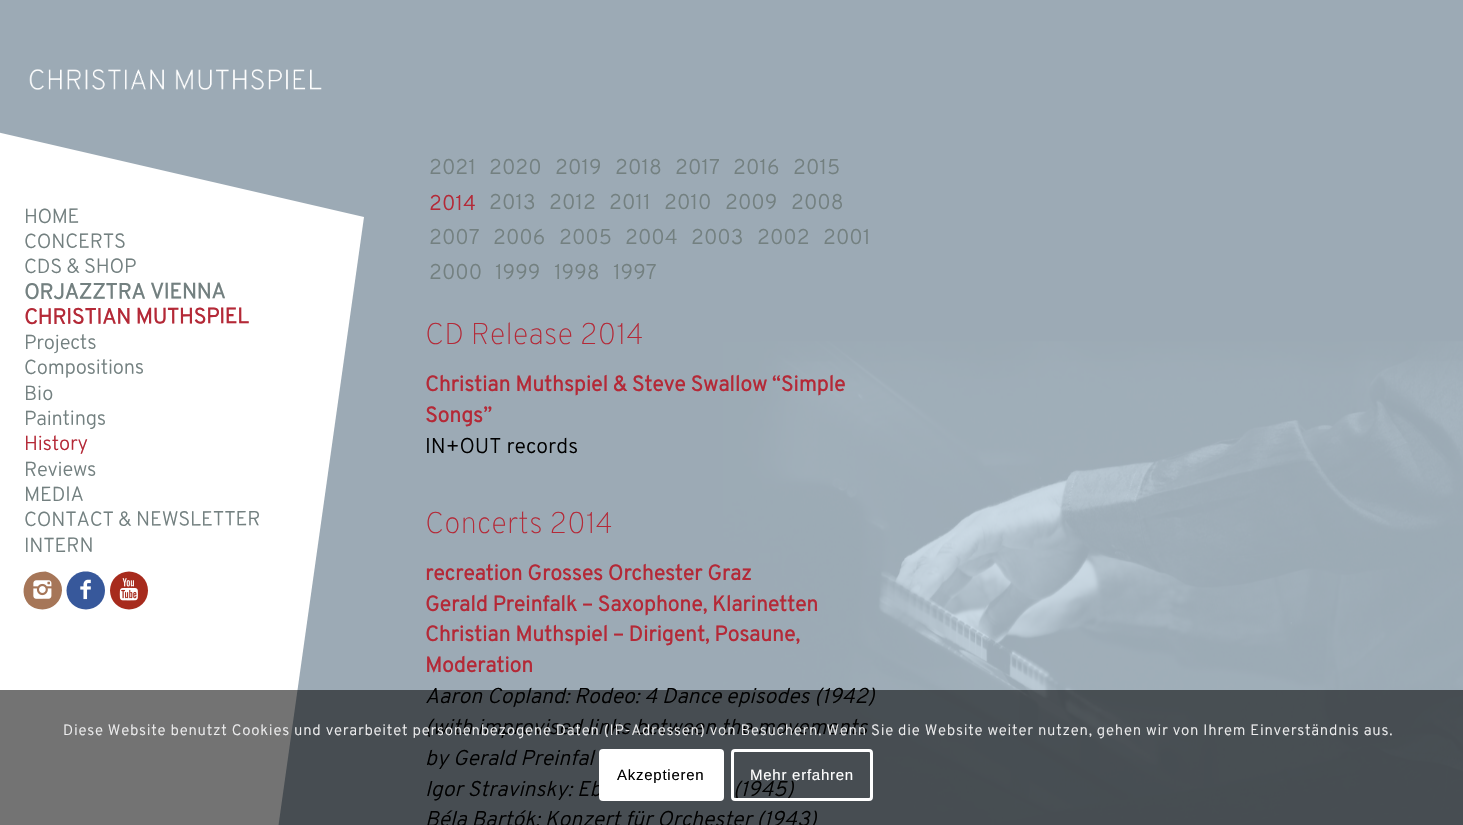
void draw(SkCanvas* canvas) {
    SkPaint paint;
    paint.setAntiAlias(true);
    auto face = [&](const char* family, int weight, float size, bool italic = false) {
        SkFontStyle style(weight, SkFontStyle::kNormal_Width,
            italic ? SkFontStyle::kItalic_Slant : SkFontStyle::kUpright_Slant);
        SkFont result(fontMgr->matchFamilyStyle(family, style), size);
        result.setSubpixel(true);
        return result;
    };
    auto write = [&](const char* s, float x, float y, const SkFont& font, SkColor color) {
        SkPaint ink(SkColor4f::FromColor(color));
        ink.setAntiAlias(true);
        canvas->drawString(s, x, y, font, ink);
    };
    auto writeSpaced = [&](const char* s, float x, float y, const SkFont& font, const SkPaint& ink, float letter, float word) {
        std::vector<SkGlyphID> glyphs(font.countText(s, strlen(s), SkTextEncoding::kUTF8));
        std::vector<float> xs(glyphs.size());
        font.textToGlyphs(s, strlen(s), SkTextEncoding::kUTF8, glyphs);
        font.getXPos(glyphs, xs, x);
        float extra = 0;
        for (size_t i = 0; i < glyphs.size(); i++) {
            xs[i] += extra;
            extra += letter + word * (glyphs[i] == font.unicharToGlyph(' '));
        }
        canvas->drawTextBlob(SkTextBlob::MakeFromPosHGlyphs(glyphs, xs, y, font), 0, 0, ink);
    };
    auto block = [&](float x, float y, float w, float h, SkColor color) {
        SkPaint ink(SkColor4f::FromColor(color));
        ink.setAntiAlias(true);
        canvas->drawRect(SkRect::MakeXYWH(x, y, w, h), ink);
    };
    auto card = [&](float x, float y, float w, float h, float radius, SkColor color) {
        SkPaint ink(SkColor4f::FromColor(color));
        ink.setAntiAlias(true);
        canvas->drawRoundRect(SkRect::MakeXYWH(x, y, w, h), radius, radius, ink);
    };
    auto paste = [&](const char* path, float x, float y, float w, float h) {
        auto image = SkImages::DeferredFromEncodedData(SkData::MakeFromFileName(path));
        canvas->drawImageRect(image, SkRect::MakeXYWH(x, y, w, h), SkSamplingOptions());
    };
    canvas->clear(SK_ColorWHITE);
    paste("pic5.png", 0, 0, 1463, 825);
    paste("pic1.png", 29, 69, 293, 21);
    paint.setColor(SK_ColorWHITE);
    canvas->drawPath(SkPathBuilder().moveTo(-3, 132).lineTo(364, 217).lineTo(16, 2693).lineTo(-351, 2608).close().detach(), paint);
    auto kFont1 = face("Overpass", 300, 20.25f);
    paint.setColor(SkColorSetRGB(115, 128, 128));
    canvas->save();
    canvas->rotate(-0.2f, 24, 223);
    writeSpaced("HOME", 24, 223, kFont1, paint, -0.5f, 0);
    canvas->restore();
    canvas->save();
    canvas->rotate(-0.2f, 24, 248);
    writeSpaced("CONCERTS", 24, 248, kFont1, paint, -0.25f, 0);
    canvas->restore();
    canvas->save();
    canvas->rotate(-0.2f, 24, 273);
    writeSpaced("CDS & SHOP", 24, 273, kFont1, paint, -0.25f, 0);
    canvas->restore();
    auto kFont2 = face("Overpass", 700, 21.5f);
    canvas->save();
    canvas->rotate(-0.2f, 24, 299);
    writeSpaced("ORJAZZTRA VIENNA", 24, 299, kFont2, paint, -0.25f, 0);
    canvas->restore();
    paint.setColor(SkColorSetRGB(180, 41, 55));
    canvas->save();
    canvas->rotate(-0.2f, 24, 324);
    writeSpaced("CHRISTIAN MUTHSPIEL", 24, 324, kFont2, paint, -0.25f, 0);
    canvas->restore();
    paint.setColor(SkColorSetRGB(115, 128, 128));
    canvas->save();
    canvas->rotate(-0.2f, 24, 349);
    writeSpaced("Projects", 24, 349, kFont1, paint, -0.25f, 0);
    canvas->restore();
    canvas->save();
    canvas->rotate(-0.2f, 24, 374);
    writeSpaced("Compositions", 24, 374, kFont1, paint, -0.25f, 0);
    canvas->restore();
    canvas->save();
    canvas->rotate(-0.2f, 24, 400);
    write("Bio", 24, 400, kFont1, SkColorSetRGB(115, 128, 128));
    canvas->restore();
    canvas->save();
    canvas->rotate(-0.2f, 24, 425);
    writeSpaced("Paintings", 24, 425, kFont1, paint, -0.25f, 0);
    canvas->restore();
    paint.setColor(SkColorSetRGB(180, 41, 55));
    canvas->save();
    canvas->rotate(-0.2f, 24, 450);
    writeSpaced("History", 24, 450, kFont1, paint, -0.25f, 0);
    canvas->restore();
    paint.setColor(SkColorSetRGB(115, 128, 128));
    canvas->save();
    canvas->rotate(-0.2f, 24, 476);
    writeSpaced("Reviews", 24, 476, kFont1, paint, -0.25f, 0);
    canvas->restore();
    canvas->save();
    canvas->rotate(-0.2f, 24, 501);
    writeSpaced("MEDIA", 24, 501, kFont1, paint, -0.25f, 0);
    canvas->restore();
    canvas->save();
    canvas->rotate(-0.2f, 24, 526);
    writeSpaced("CONTACT & NEWSLETTER", 24, 526, kFont1, paint, -0.25f, 0);
    canvas->restore();
    canvas->save();
    canvas->rotate(-0.2f, 24, 552);
    writeSpaced("INTERN", 24, 552, kFont1, paint, -0.25f, 0);
    canvas->restore();
    paint.setColor(SkColorSetRGB(166, 118, 88));
    canvas->drawPath(SkPathBuilder().moveTo(40, 572).lineTo(45.5f, 571.5f).cubicTo(54.5f, 573.5f, 62.5f, 581, 62, 590.5f).cubicTo(61.5f, 601, 53, 609.5f, 42.5f, 609.5f).cubicTo(18.5f, 609.5f, 17, 575.5f, 40, 572).close().detach(), paint);
    paste("pic2.png", 33, 580, 19, 19);
    paint.setColor(SkColorSetRGB(55, 88, 155));
    canvas->drawPath(SkPathBuilder().moveTo(83.5f, 571.5f).lineTo(88, 571.5f).cubicTo(97.5f, 572.5f, 105, 580.5f, 105, 590.5f).cubicTo(105, 601, 96.5f, 609.5f, 86, 609.5f).cubicTo(75, 609.5f, 66.5f, 601, 66.5f, 590.5f).cubicTo(66.5f, 581, 74, 572.5f, 83.5f, 571.5f).close().detach(), paint);
    paste("pic3.png", 80, 579, 11, 21);
    paint.setColor(SkColorSetRGB(167, 43, 29));
    canvas->drawPath(SkPathBuilder().moveTo(129, 571.5f).cubicTo(139.5f, 571.5f, 148, 580, 148, 590.5f).cubicTo(148, 601, 139.5f, 609.5f, 129, 609.5f).cubicTo(118.5f, 609.5f, 110, 601, 110, 590.5f).cubicTo(110, 580, 118.5f, 571.5f, 129, 571.5f).close().detach(), paint);
    paste("pic4.png", 119, 578, 19, 23);
    auto kFont3 = face("Overpass", 300, 21.25f);
    write("2021", 429, 174, kFont3, SkColorSetRGB(115, 128, 128));
    write("2020", 489, 174, kFont3, SkColorSetRGB(115, 128, 128));
    write("2019", 555, 174, kFont3, SkColorSetRGB(115, 128, 128));
    write("2018", 615, 174, kFont3, SkColorSetRGB(115, 128, 128));
    write("2017", 675, 174, kFont3, SkColorSetRGB(115, 128, 128));
    write("2016", 733, 174, kFont3, SkColorSetRGB(115, 128, 128));
    write("2015", 793, 174, kFont3, SkColorSetRGB(115, 128, 128));
    write("2014", 429, 210, kFont3, SkColorSetRGB(180, 41, 55));
    write("2013", 489, 209, kFont3, SkColorSetRGB(115, 128, 128));
    write("2012", 549, 209, kFont3, SkColorSetRGB(115, 128, 128));
    write("2011", 609, 209, kFont3, SkColorSetRGB(115, 128, 128));
    write("2010", 664, 209, kFont3, SkColorSetRGB(115, 128, 128));
    write("2009", 725, 209, kFont3, SkColorSetRGB(115, 128, 128));
    write("2008", 791, 209, kFont3, SkColorSetRGB(115, 128, 128));
    write("2007", 429, 244, kFont3, SkColorSetRGB(115, 128, 128));
    write("2006", 493, 244, kFont3, SkColorSetRGB(115, 128, 128));
    write("2005", 559, 244, kFont3, SkColorSetRGB(115, 128, 128));
    write("2004", 625, 244, kFont3, SkColorSetRGB(115, 128, 128));
    write("2003", 691, 244, kFont3, SkColorSetRGB(115, 128, 128));
    write("2002", 757, 244, kFont3, SkColorSetRGB(115, 128, 128));
    write("2001", 823, 244, kFont3, SkColorSetRGB(115, 128, 128));
    write("2000", 429, 279, kFont3, SkColorSetRGB(115, 128, 128));
    write("1999", 495, 279, kFont3, SkColorSetRGB(115, 128, 128));
    write("1998", 554, 279, kFont3, SkColorSetRGB(115, 128, 128));
    write("1997", 613, 279, kFont3, SkColorSetRGB(115, 128, 128));
    auto kFont4 = face("Overpass", 100, 30);
    write("CD Release 2014", 425, 344, kFont4, SkColorSetRGB(180, 41, 55));
    auto kFont5 = face("Overpass", 700, 21.25f);
    write("Christian Muthspiel & Steve Swallow “Simple", 425, 391, kFont5, SkColorSetRGB(180, 41, 55));
    write("Songs”", 425, 422, kFont5, SkColorSetRGB(180, 41, 55));
    write("IN+OUT records", 425, 453, kFont3, SK_ColorBLACK);
    write("Concerts 2014", 425, 533, kFont4, SkColorSetRGB(180, 41, 55));
    write("recreation Grosses Orchester Graz", 425, 580, kFont5, SkColorSetRGB(180, 41, 55));
    write("Gerald Preinfalk – Saxophone, Klarinetten", 425, 611, kFont5, SkColorSetRGB(180, 41, 55));
    write("Christian Muthspiel – Dirigent, Posaune,", 425, 641, kFont5, SkColorSetRGB(180, 41, 55));
    write("Moderation", 425, 672, kFont5, SkColorSetRGB(180, 41, 55));
    auto kFont6 = face("Overpass", 300, 21.25f, true);
    write("Aaron Copland: Rodeo: 4 Dance episodes (1942)", 425, 703, kFont6, SK_ColorBLACK);
    write("(with improvised links between the movements", 425, 734, kFont6, SK_ColorBLACK);
    write("by Gerald Preinfal", 425, 765, kFont6, SK_ColorBLACK);
    write("Igor Stravinsky: Eb", 425, 796, kFont6, SK_ColorBLACK);
    write("(1945)", 733, 796, kFont6, SK_ColorBLACK);
    write("Béla Bartók: Konzert für Orchester (1943)", 425, 826, kFont6, SK_ColorBLACK);
    block(0, 690, 1463, 135, SkColorSetARGB(140, 0, 0, 0));
    auto kFont7 = face("Overpass", 300, 15);
    paint.setColor(SkColorSetRGB(237, 237, 238));
    writeSpaced("Diese Website benutzt Cookies und verarbeitet personenbezogene Daten (IP-Adressen) von Besuchern. Wenn Sie die Website weiter nutzen, gehen wir von Ihrem Einverständnis aus.", 63, 735, kFont7, paint, 0.75f, 0);
    card(599, 749, 125, 52, 4, SK_ColorWHITE);
    auto kFont8 = face("Liberation Sans", 400, 15);
    paint.setColor(SK_ColorBLACK);
    writeSpaced("Akzeptieren", 617, 780, kFont8, paint, 0.75f, 0);
    paint.setStyle(SkPaint::kStroke_Style);
    paint.setStrokeWidth(3);
    paint.setColor(SK_ColorWHITE);
    canvas->drawRoundRect(SkRect::MakeXYWH(732.5f, 750.5f, 139, 49), 2.5f, 2.5f, paint);
    paint.setStyle(SkPaint::kFill_Style);
    writeSpaced("Mehr erfahren", 750, 780, kFont8, paint, 0.75f, 0);
}
